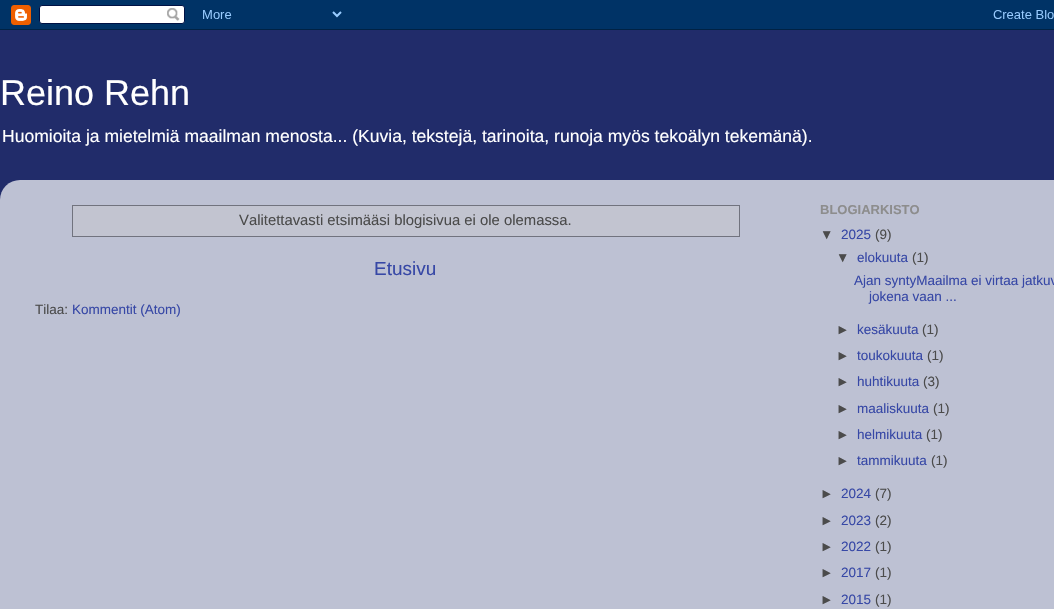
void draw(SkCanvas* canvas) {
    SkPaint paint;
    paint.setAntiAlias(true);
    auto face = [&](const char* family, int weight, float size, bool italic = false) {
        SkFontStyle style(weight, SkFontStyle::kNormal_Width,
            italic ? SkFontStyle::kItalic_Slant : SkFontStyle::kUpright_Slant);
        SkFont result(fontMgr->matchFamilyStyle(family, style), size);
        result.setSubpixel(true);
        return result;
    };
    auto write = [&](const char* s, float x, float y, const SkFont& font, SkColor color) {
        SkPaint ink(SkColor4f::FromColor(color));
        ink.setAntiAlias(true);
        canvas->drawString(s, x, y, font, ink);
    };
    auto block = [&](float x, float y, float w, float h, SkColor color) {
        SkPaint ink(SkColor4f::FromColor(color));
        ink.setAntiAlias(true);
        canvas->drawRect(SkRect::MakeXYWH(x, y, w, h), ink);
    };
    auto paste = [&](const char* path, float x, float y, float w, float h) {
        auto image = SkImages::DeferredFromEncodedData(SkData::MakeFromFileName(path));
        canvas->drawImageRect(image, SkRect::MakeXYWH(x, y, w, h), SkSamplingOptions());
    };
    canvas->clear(SkColorSetRGB(33, 44, 106));
    paste("pic1.png", 0, 0, 1054, 30);
    auto kFont1 = face("Liberation Sans", 400, 36);
    write("Reino Rehn", 0, 105, kFont1, SK_ColorWHITE);
    auto kFont2 = face("Liberation Sans", 400, 17.55f);
    write("Huomioita ja mietelmiä maailman menosta... (Kuvia, tekstejä, tarinoita, runoja myös tekoälyn tekemänä).", 2, 142, kFont2, SK_ColorWHITE);
    paste("pic2.png", 0, 180, 1054, 429);
    paint.setStyle(SkPaint::kStroke_Style);
    paint.setStrokeWidth(1);
    paint.setColor(SkColorSetRGB(113, 115, 126));
    canvas->drawRect(SkRect::MakeXYWH(72.5f, 205.5f, 667, 31), paint);
    block(73, 206, 666, 30, SkColorSetRGB(194, 196, 208));
    auto kFont3 = face("Liberation Sans", 400, 14.85f);
    write("Valitettavasti etsimääsi blogisivua ei ole olemassa.", 239, 225, kFont3, SkColorSetRGB(75, 75, 75));
    auto kFont4 = face("Liberation Sans", 400, 19);
    write("Etusivu", 374, 275, kFont4, SkColorSetRGB(55, 72, 166));
    auto kFont5 = face("Liberation Sans", 400, 13.5f);
    write("Tilaa:", 35, 314, kFont5, SkColorSetRGB(75, 75, 75));
    write("Kommentit (Atom)", 72, 314, kFont5, SkColorSetRGB(55, 72, 166));
    auto kFont6 = face("Liberation Sans", 700, 13);
    write("BLOGIARKISTO", 820, 214, kFont6, SkColorSetRGB(141, 141, 141));
    write("▼", 820, 239, kFont5, SkColorSetRGB(75, 75, 75));
    write("2025", 841, 239, kFont5, SkColorSetRGB(55, 72, 166));
    write("(9)", 875, 239, kFont5, SkColorSetRGB(75, 75, 75));
    write("▼", 836, 262, kFont5, SkColorSetRGB(75, 75, 75));
    write("elokuuta", 857, 262, kFont5, SkColorSetRGB(55, 72, 166));
    write("(1)", 912, 262, kFont5, SkColorSetRGB(75, 75, 75));
    write("Ajan syntyMaailma ei virtaa jatkuv", 854, 285, kFont5, SkColorSetRGB(55, 72, 166));
    write("jokena vaan ...", 869, 301, kFont5, SkColorSetRGB(55, 72, 166));
    write("►", 836, 334, kFont5, SkColorSetRGB(75, 75, 75));
    write("kesäkuuta", 857, 334, kFont5, SkColorSetRGB(55, 72, 166));
    write("(1)", 922, 334, kFont5, SkColorSetRGB(75, 75, 75));
    write("►", 836, 360, kFont5, SkColorSetRGB(75, 75, 75));
    write("toukokuuta", 857, 360, kFont5, SkColorSetRGB(55, 72, 166));
    write("(1)", 927, 360, kFont5, SkColorSetRGB(75, 75, 75));
    write("►", 836, 386, kFont5, SkColorSetRGB(75, 75, 75));
    write("huhtikuuta", 857, 386, kFont5, SkColorSetRGB(55, 72, 166));
    write("(3)", 923, 386, kFont5, SkColorSetRGB(75, 75, 75));
    write("►", 836, 413, kFont5, SkColorSetRGB(75, 75, 75));
    write("maaliskuuta", 857, 413, kFont5, SkColorSetRGB(55, 72, 166));
    write("(1)", 933, 413, kFont5, SkColorSetRGB(75, 75, 75));
    write("►", 836, 439, kFont5, SkColorSetRGB(75, 75, 75));
    write("helmikuuta", 857, 439, kFont5, SkColorSetRGB(55, 72, 166));
    write("(1)", 926, 439, kFont5, SkColorSetRGB(75, 75, 75));
    write("►", 836, 465, kFont5, SkColorSetRGB(75, 75, 75));
    write("tammikuuta", 857, 465, kFont5, SkColorSetRGB(55, 72, 166));
    write("(1)", 931, 465, kFont5, SkColorSetRGB(75, 75, 75));
    write("►", 820, 498, kFont5, SkColorSetRGB(75, 75, 75));
    write("2024", 841, 498, kFont5, SkColorSetRGB(55, 72, 166));
    write("(7)", 875, 498, kFont5, SkColorSetRGB(75, 75, 75));
    write("►", 820, 525, kFont5, SkColorSetRGB(75, 75, 75));
    write("2023", 841, 525, kFont5, SkColorSetRGB(55, 72, 166));
    write("(2)", 875, 525, kFont5, SkColorSetRGB(75, 75, 75));
    write("►", 820, 551, kFont5, SkColorSetRGB(75, 75, 75));
    write("2022", 841, 551, kFont5, SkColorSetRGB(55, 72, 166));
    write("(1)", 875, 551, kFont5, SkColorSetRGB(75, 75, 75));
    write("►", 820, 577, kFont5, SkColorSetRGB(75, 75, 75));
    write("2017", 841, 577, kFont5, SkColorSetRGB(55, 72, 166));
    write("(1)", 875, 577, kFont5, SkColorSetRGB(75, 75, 75));
    write("►", 820, 604, kFont5, SkColorSetRGB(75, 75, 75));
    write("2015", 841, 604, kFont5, SkColorSetRGB(55, 72, 166));
    write("(1)", 875, 604, kFont5, SkColorSetRGB(75, 75, 75));
}
